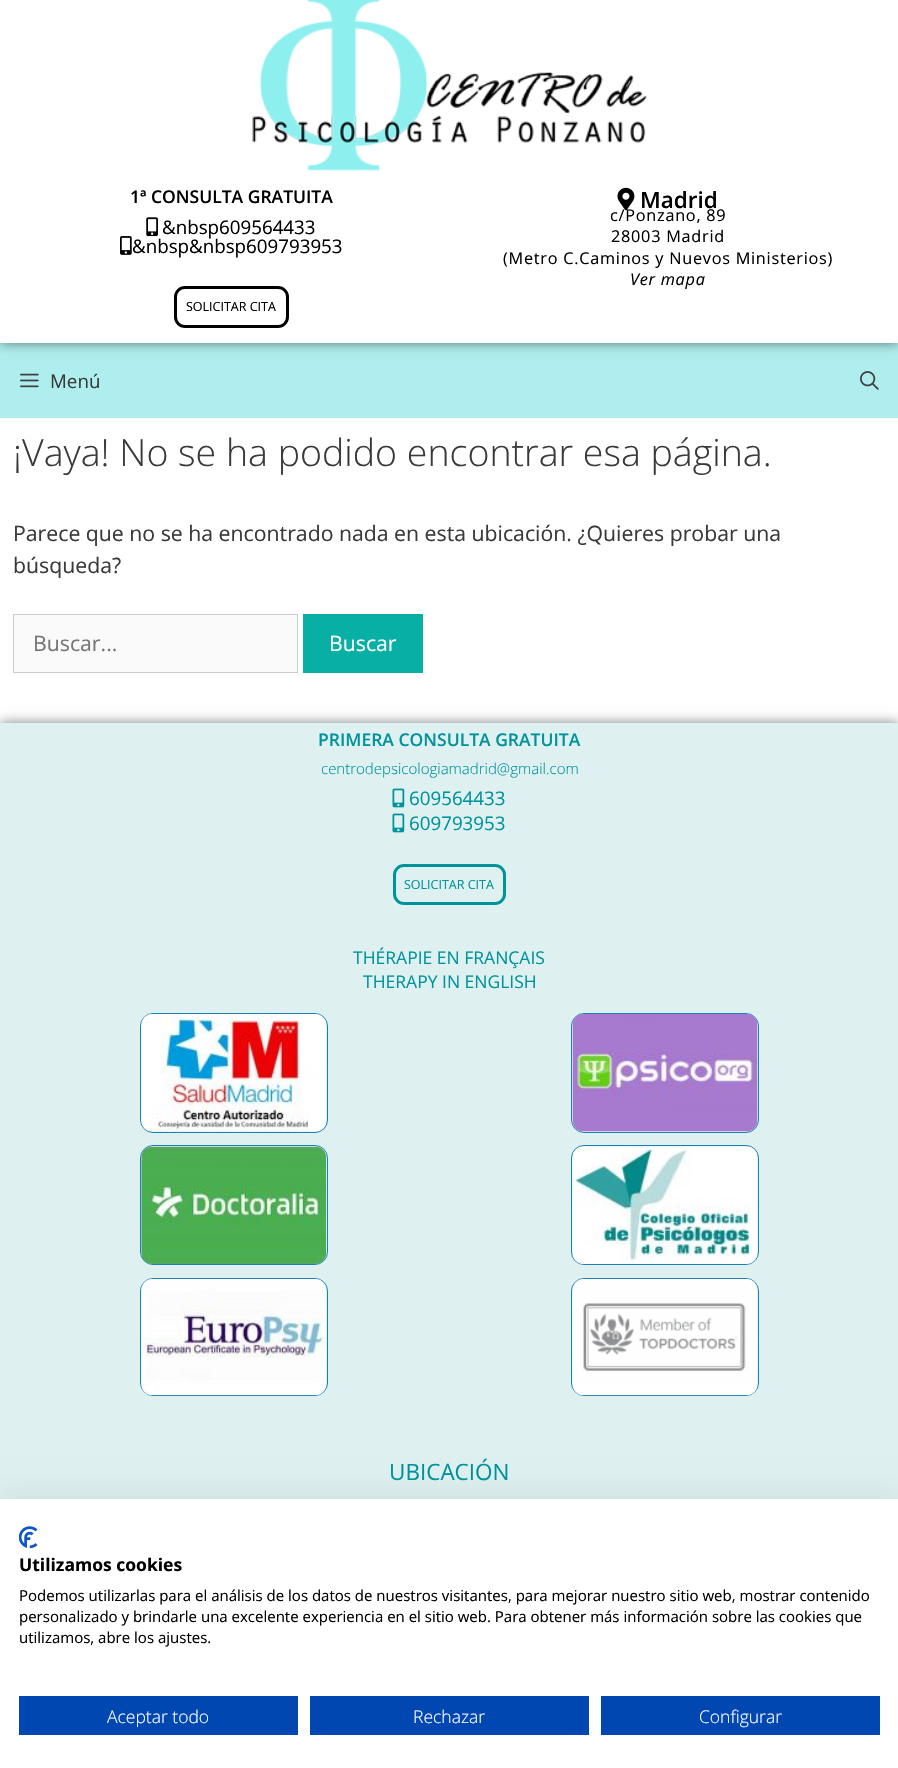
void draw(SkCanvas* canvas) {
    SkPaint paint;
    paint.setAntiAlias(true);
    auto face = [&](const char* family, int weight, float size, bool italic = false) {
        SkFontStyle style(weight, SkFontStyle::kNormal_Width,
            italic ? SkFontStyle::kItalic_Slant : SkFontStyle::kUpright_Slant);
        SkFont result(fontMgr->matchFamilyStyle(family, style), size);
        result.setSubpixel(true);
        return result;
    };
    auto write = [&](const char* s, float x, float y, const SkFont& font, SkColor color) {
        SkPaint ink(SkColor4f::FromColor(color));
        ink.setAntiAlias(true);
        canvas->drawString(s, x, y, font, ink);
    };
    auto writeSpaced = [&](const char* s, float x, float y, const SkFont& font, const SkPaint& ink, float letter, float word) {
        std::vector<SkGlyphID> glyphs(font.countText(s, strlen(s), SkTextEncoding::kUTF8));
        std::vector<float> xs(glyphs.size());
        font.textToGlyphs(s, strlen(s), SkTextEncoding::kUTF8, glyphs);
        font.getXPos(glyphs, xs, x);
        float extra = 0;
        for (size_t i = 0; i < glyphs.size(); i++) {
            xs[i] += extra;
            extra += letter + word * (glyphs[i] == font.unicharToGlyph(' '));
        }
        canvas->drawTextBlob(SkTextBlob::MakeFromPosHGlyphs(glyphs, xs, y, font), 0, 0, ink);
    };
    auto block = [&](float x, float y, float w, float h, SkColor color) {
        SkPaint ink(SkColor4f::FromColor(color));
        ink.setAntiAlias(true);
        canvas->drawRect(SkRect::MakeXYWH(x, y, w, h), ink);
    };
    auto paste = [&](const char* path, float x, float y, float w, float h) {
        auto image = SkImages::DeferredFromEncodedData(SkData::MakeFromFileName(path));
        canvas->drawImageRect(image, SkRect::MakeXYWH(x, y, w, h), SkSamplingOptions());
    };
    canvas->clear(SK_ColorWHITE);
    block(0, 343, 898, 75, SkColorSetRGB(175, 238, 238));
    paint.setColor(SkColorSetARGB(128, 0, 0, 0));
    paint.setMaskFilter(SkMaskFilter::MakeBlur(kNormal_SkBlurStyle, 6));
    canvas->drawRect(SkRect::MakeXYWH(0, -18, 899, 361), paint);
    paint.setMaskFilter(nullptr);
    block(0, 0, 898, 343, SK_ColorWHITE);
    paste("pic1.png", 252, 0, 395, 171);
    auto kFont1 = face("Open Sans", 600, 17.5f);
    write("1ª CONSULTA GRATUITA", 130, 203, kFont1, SK_ColorBLACK);
    paste("pic2.png", 146, 217, 12, 20);
    auto kFont2 = face("Open Sans", 400, 18.75f);
    write("&nbsp609564433", 162, 234, kFont2, SK_ColorBLACK);
    paste("pic3.png", 120, 236, 12, 19);
    write("&nbsp&nbsp609793953", 132, 253, kFont2, SK_ColorBLACK);
    paint.setStyle(SkPaint::kStroke_Style);
    paint.setStrokeWidth(3);
    paint.setColor(SK_ColorBLACK);
    canvas->drawRoundRect(SkRect::MakeXYWH(175.5f, 287.5f, 112, 39), 9.5f, 9.5f, paint);
    auto kFont3 = face("Open Sans", 400, 12.5f);
    write("SOLICITAR CITA", 186, 311, kFont3, SK_ColorBLACK);
    paste("pic4.png", 617, 187, 18, 24);
    auto kFont4 = face("Open Sans", 600, 22.5f);
    write("Madrid", 640, 208, kFont4, SK_ColorBLACK);
    auto kFont5 = face("Open Sans", 400, 16.25f);
    paint.setStyle(SkPaint::kFill_Style);
    writeSpaced("c/Ponzano, 89", 610, 221, kFont5, paint, 0.75f, 0);
    writeSpaced("28003 Madrid", 611, 242, kFont5, paint, 0.75f, 0);
    writeSpaced("(Metro C.Caminos y Nuevos Ministerios)", 503, 264, kFont5, paint, 0.75f, 0);
    auto kFont6 = face("Open Sans", 400, 16.25f, true);
    writeSpaced("Ver mapa", 630, 285, kFont6, paint, 0.75f, 0);
    paste("pic5.png", 20, 373, 19, 15);
    write("Menú", 50, 388, kFont2, SkColorSetRGB(58, 58, 58));
    paste("pic6.png", 860, 371, 19, 19);
    auto kFont7 = face("Open Sans", 300, 37.5f);
    write("¡Vaya! No se ha podido encontrar esa página.", 13, 466, kFont7, SkColorSetRGB(58, 58, 58));
    auto kFont8 = face("Open Sans", 400, 21.25f);
    write("Parece que no se ha encontrado nada en esta ubicación. ¿Quieres probar una", 13, 541, kFont8, SkColorSetRGB(58, 58, 58));
    write("búsqueda?", 13, 573, kFont8, SkColorSetRGB(58, 58, 58));
    paint.setColor(SkColorSetRGB(250, 250, 250));
    canvas->drawRect(SkRect::MakeXYWH(13.5f, 614.5f, 284, 58), paint);
    paint.setStyle(SkPaint::kStroke_Style);
    paint.setStrokeWidth(1);
    paint.setColor(SkColorSetRGB(204, 204, 204));
    canvas->drawRect(SkRect::MakeXYWH(13.5f, 614.5f, 284, 58), paint);
    write("Buscar...", 33, 651, kFont8, SkColorSetRGB(117, 117, 117));
    block(303, 614, 120, 59, SkColorSetRGB(7, 175, 164));
    write("Buscar", 329, 651, kFont8, SK_ColorWHITE);
    paint.setStyle(SkPaint::kFill_Style);
    paint.setColor(SkColorSetARGB(128, 0, 0, 0));
    paint.setMaskFilter(SkMaskFilter::MakeBlur(kNormal_SkBlurStyle, 6));
    canvas->drawRect(SkRect::MakeXYWH(0, 723, 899, 993), paint);
    paint.setMaskFilter(nullptr);
    block(0, 723, 898, 776, SkColorSetRGB(222, 240, 240));
    write("PRIMERA CONSULTA GRATUITA", 318, 746, kFont1, SkColorSetRGB(0, 147, 155));
    auto kFont9 = face("Open Sans", 300, 15);
    write("centrodepsicologiamadrid@gmail.com", 321, 774, kFont9, SkColorSetRGB(0, 147, 155));
    paste("pic7.png", 392, 788, 13, 20);
    write("609564433", 409, 805, kFont2, SkColorSetRGB(0, 147, 155));
    paste("pic7.png", 392, 813, 13, 20);
    write("609793953", 409, 830, kFont2, SkColorSetRGB(0, 147, 155));
    paint.setStyle(SkPaint::kStroke_Style);
    paint.setStrokeWidth(3);
    paint.setColor(SkColorSetRGB(0, 147, 155));
    canvas->drawRoundRect(SkRect::MakeXYWH(394.5f, 865.5f, 110, 38), 9.5f, 9.5f, paint);
    write("SOLICITAR CITA", 404, 889, kFont3, SkColorSetRGB(0, 147, 155));
    auto kFont10 = face("Open Sans", 400, 17.5f);
    write("THÉRAPIE EN FRANÇAIS", 353, 964, kFont10, SkColorSetRGB(0, 147, 155));
    write("THERAPY IN ENGLISH", 363, 988, kFont10, SkColorSetRGB(0, 147, 155));
    paint.setStrokeWidth(1);
    paint.setColor(SkColorSetRGB(26, 128, 182));
    canvas->drawRoundRect(SkRect::MakeXYWH(140.5f, 1013.5f, 187, 119), 12.5f, 12.5f, paint);
    paste("pic8.png", 141, 1014, 185, 118);
    canvas->drawRoundRect(SkRect::MakeXYWH(571.5f, 1013.5f, 187, 119), 12.5f, 12.5f, paint);
    paste("pic9.png", 572, 1014, 186, 118);
    canvas->drawRoundRect(SkRect::MakeXYWH(140.5f, 1145.5f, 187, 119), 12.5f, 12.5f, paint);
    paste("pic10.png", 141, 1146, 186, 118);
    canvas->drawRoundRect(SkRect::MakeXYWH(571.5f, 1145.5f, 187, 119), 12.5f, 12.5f, paint);
    paste("pic11.png", 572, 1146, 186, 118);
    canvas->drawRoundRect(SkRect::MakeXYWH(140.5f, 1278.5f, 187, 117), 12.5f, 12.5f, paint);
    paste("pic12.png", 141, 1279, 185, 117);
    canvas->drawRoundRect(SkRect::MakeXYWH(571.5f, 1278.5f, 187, 117), 12.5f, 12.5f, paint);
    paste("pic13.png", 572, 1279, 186, 117);
    auto kFont11 = face("Open Sans", 400, 22.5f);
    write("UBICACIÓN", 389, 1480, kFont11, SkColorSetRGB(0, 147, 155));
    paint.setStyle(SkPaint::kFill_Style);
    paint.setColor(SkColorSetARGB(26, 0, 0, 0));
    paint.setMaskFilter(SkMaskFilter::MakeBlur(kNormal_SkBlurStyle, 15));
    canvas->drawRect(SkRect::MakeXYWH(0, 1499, 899, 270), paint);
    paint.setMaskFilter(nullptr);
    block(0, 1499, 898, 269, SK_ColorWHITE);
    paste("pic14.png", 19, 1526, 19, 23);
    auto kFont12 = face("Open Sans", 700, 17.5f);
    write("Utilizamos cookies", 19, 1571, kFont12, SK_ColorBLACK);
    auto kFont13 = face("Open Sans", 400, 15);
    write("Podemos utilizarlas para el análisis de los datos de nuestros visitantes, para mejorar nuestro sitio web, mostrar contenido", 19, 1601, kFont13, SK_ColorBLACK);
    write("personalizado y brindarle una excelente experiencia en el sitio web. Para obtener más información sobre las cookies que", 19, 1622, kFont13, SK_ColorBLACK);
    write("utilizamos, abre los ajustes.", 19, 1643, kFont13, SK_ColorBLACK);
    block(19, 1696, 279, 39, SkColorSetRGB(0, 71, 178));
    auto kFont14 = face("Open Sans", 300, 17.5f);
    write("Aceptar todo", 107, 1723, kFont14, SK_ColorWHITE);
    block(310, 1696, 279, 39, SkColorSetRGB(0, 71, 178));
    write("Rechazar", 413, 1723, kFont14, SK_ColorWHITE);
    block(601, 1696, 279, 39, SkColorSetRGB(0, 71, 178));
    write("Configurar", 699, 1723, kFont14, SK_ColorWHITE);
}
